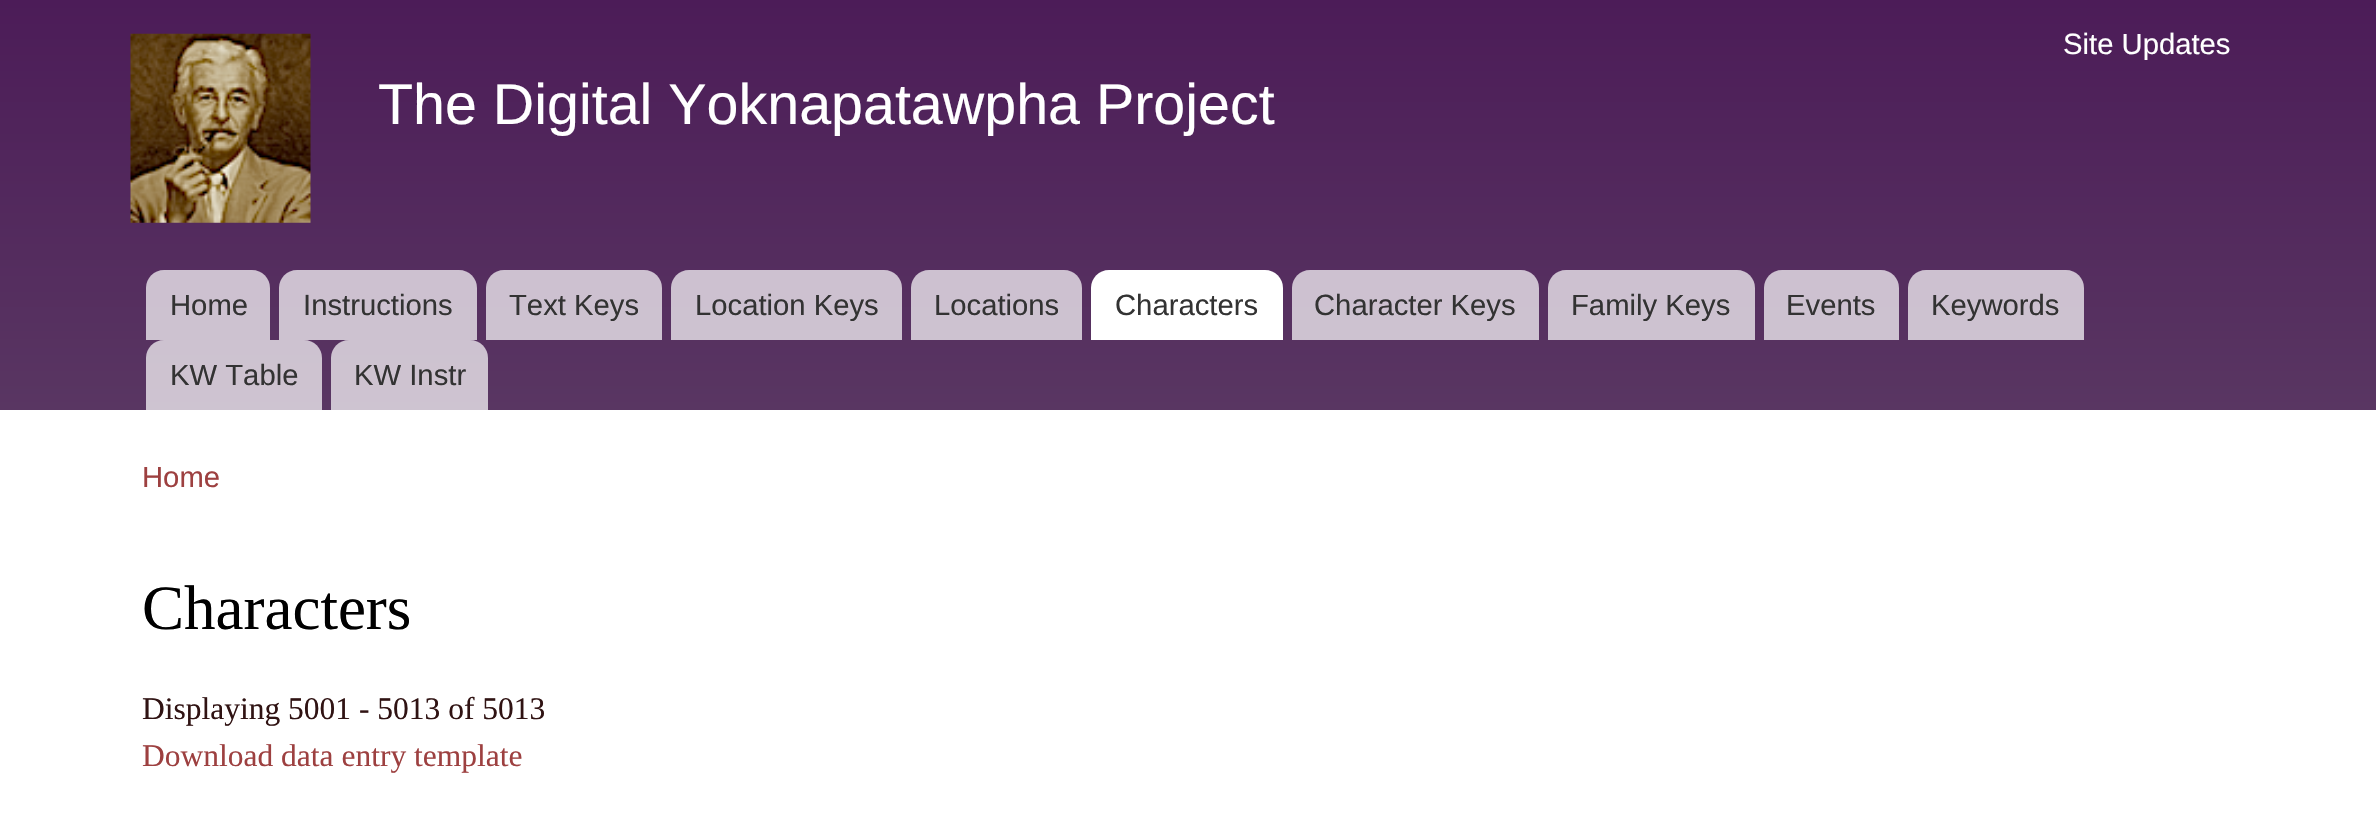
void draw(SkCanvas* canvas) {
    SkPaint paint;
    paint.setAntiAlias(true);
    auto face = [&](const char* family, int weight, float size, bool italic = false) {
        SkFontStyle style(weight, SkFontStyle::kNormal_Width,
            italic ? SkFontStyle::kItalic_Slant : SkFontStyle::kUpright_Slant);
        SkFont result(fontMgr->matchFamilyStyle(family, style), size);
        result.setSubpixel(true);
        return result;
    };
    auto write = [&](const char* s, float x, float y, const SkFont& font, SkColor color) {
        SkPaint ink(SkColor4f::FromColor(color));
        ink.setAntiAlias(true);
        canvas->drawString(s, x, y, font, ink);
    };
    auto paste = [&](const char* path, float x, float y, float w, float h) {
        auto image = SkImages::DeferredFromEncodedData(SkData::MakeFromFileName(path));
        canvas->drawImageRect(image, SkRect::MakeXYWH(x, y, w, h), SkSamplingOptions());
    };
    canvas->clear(SK_ColorWHITE);
    {
        const SkColor colors[] = {SkColorSetRGB(76, 28, 88), SkColorSetRGB(89, 54, 98)};
        const float stops[] = {0, 1};
        const SkPoint ends[] = {{1188, 0}, {1188, 410}};
        paint.setShader(SkGradientShader::MakeLinear(ends, colors, stops, 2, SkTileMode::kClamp));
        paint.setAlpha(255);
    }
    canvas->drawRect(SkRect::MakeXYWH(0, 0, 2376, 410), paint);
    paste("pic1.png", 130, 33, 181, 190);
    auto kFont1 = face("Liberation Sans", 400, 57.4f);
    write("The Digital Yoknapatawpha Project", 378, 124, kFont1, SK_ColorWHITE);
    auto kFont2 = face("Liberation Sans", 400, 29.25f);
    write("Site Updates", 2063, 54, kFont2, SK_ColorWHITE);
    paint.setShader(nullptr);
    paint.setColor(SkColorSetARGB(179, 255, 255, 255));
    canvas->drawPath(SkPathBuilder().moveTo(164, 270).lineTo(252, 270).cubicTo(262, 270, 270, 278, 270, 288).lineTo(270, 340).lineTo(146, 340).lineTo(146, 288).cubicTo(146, 278, 154, 270, 164, 270).close().detach(), paint);
    write("Home", 170, 315, kFont2, SkColorSetRGB(51, 51, 51));
    canvas->drawPath(SkPathBuilder().moveTo(297, 270).lineTo(459, 270).cubicTo(469, 270, 477, 278, 477, 288).lineTo(477, 340).lineTo(279, 340).lineTo(279, 288).cubicTo(279, 278, 287, 270, 297, 270).close().detach(), paint);
    write("Instructions", 303, 315, kFont2, SkColorSetRGB(51, 51, 51));
    canvas->drawPath(SkPathBuilder().moveTo(504, 270).lineTo(644, 270).cubicTo(654, 270, 662, 278, 662, 288).lineTo(662, 340).lineTo(486, 340).lineTo(486, 288).cubicTo(486, 278, 494, 270, 504, 270).close().detach(), paint);
    write("Text Keys", 509, 315, kFont2, SkColorSetRGB(51, 51, 51));
    canvas->drawPath(SkPathBuilder().moveTo(689, 270).lineTo(884, 270).cubicTo(894, 270, 902, 278, 902, 288).lineTo(902, 340).lineTo(671, 340).lineTo(671, 288).cubicTo(671, 278, 679, 270, 689, 270).close().detach(), paint);
    write("Location Keys", 695, 315, kFont2, SkColorSetRGB(51, 51, 51));
    canvas->drawPath(SkPathBuilder().moveTo(929, 270).lineTo(1064, 270).cubicTo(1074, 270, 1082, 278, 1082, 288).lineTo(1082, 340).lineTo(911, 340).lineTo(911, 288).cubicTo(911, 278, 919, 270, 929, 270).close().detach(), paint);
    write("Locations", 934, 315, kFont2, SkColorSetRGB(51, 51, 51));
    paint.setColor(SK_ColorWHITE);
    canvas->drawPath(SkPathBuilder().moveTo(1109, 270).lineTo(1265, 270).cubicTo(1275, 270, 1283, 278, 1283, 288).lineTo(1283, 340).lineTo(1091, 340).lineTo(1091, 288).cubicTo(1091, 278, 1099, 270, 1109, 270).close().detach(), paint);
    write("Characters", 1115, 315, kFont2, SkColorSetRGB(51, 51, 51));
    paint.setColor(SkColorSetARGB(179, 255, 255, 255));
    canvas->drawPath(SkPathBuilder().moveTo(1310, 270).lineTo(1521, 270).cubicTo(1531, 270, 1539, 278, 1539, 288).lineTo(1539, 340).lineTo(1292, 340).lineTo(1292, 288).cubicTo(1292, 278, 1300, 270, 1310, 270).close().detach(), paint);
    write("Character Keys", 1314, 315, kFont2, SkColorSetRGB(51, 51, 51));
    canvas->drawPath(SkPathBuilder().moveTo(1566, 270).lineTo(1737, 270).cubicTo(1747, 270, 1755, 278, 1755, 288).lineTo(1755, 340).lineTo(1548, 340).lineTo(1548, 288).cubicTo(1548, 278, 1556, 270, 1566, 270).close().detach(), paint);
    write("Family Keys", 1571, 315, kFont2, SkColorSetRGB(51, 51, 51));
    canvas->drawPath(SkPathBuilder().moveTo(1782, 270).lineTo(1881, 270).cubicTo(1891, 270, 1899, 278, 1899, 288).lineTo(1899, 340).lineTo(1764, 340).lineTo(1764, 288).cubicTo(1764, 278, 1772, 270, 1782, 270).close().detach(), paint);
    write("Events", 1786, 315, kFont2, SkColorSetRGB(51, 51, 51));
    canvas->drawPath(SkPathBuilder().moveTo(1926, 270).lineTo(2066, 270).cubicTo(2076, 270, 2084, 278, 2084, 288).lineTo(2084, 340).lineTo(1908, 340).lineTo(1908, 288).cubicTo(1908, 278, 1916, 270, 1926, 270).close().detach(), paint);
    write("Keywords", 1931, 315, kFont2, SkColorSetRGB(51, 51, 51));
    canvas->drawPath(SkPathBuilder().moveTo(164, 340).lineTo(304, 340).cubicTo(314, 340, 322, 348, 322, 358).lineTo(322, 410).lineTo(146, 410).lineTo(146, 358).cubicTo(146, 348, 154, 340, 164, 340).close().detach(), paint);
    write("KW Table", 170, 385, kFont2, SkColorSetRGB(51, 51, 51));
    canvas->drawPath(SkPathBuilder().moveTo(349, 340).lineTo(470, 340).cubicTo(480, 340, 488, 348, 488, 358).lineTo(488, 410).lineTo(331, 410).lineTo(331, 358).cubicTo(331, 348, 339, 340, 349, 340).close().detach(), paint);
    write("KW Instr", 354, 385, kFont2, SkColorSetRGB(51, 51, 51));
    write("Home", 142, 487, kFont2, SkColorSetRGB(157, 64, 64));
    auto kFont3 = face("Liberation Serif", 400, 63);
    write("Characters", 142, 629, kFont3, SK_ColorBLACK);
    auto kFont4 = face("Liberation Serif", 400, 31.5f);
    write("Displaying 5001 - 5013 of 5013", 142, 719, kFont4, SkColorSetRGB(48, 19, 19));
    write("Download data entry template", 142, 766, kFont4, SkColorSetRGB(157, 64, 64));
}
